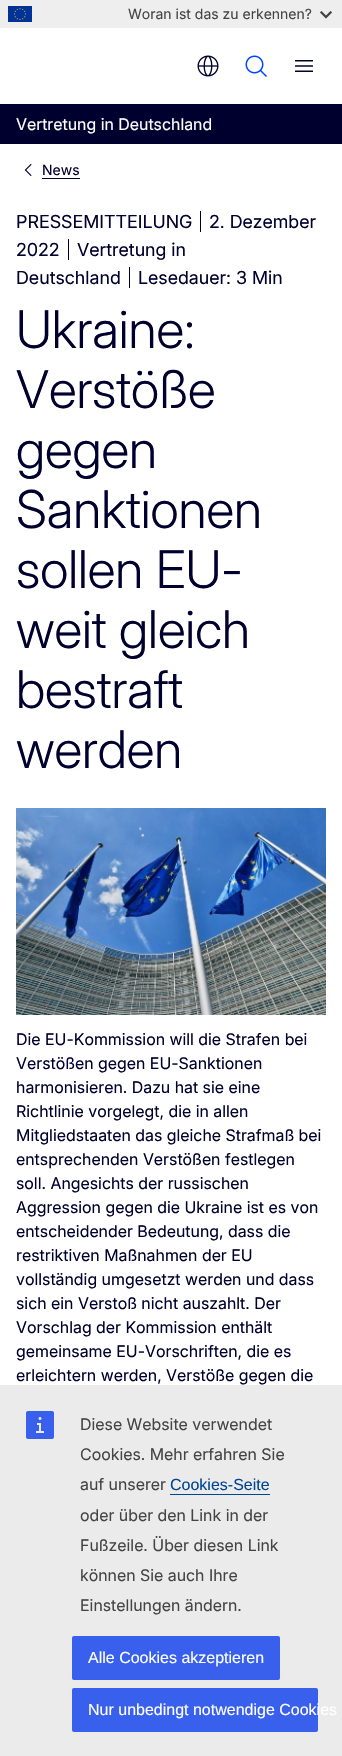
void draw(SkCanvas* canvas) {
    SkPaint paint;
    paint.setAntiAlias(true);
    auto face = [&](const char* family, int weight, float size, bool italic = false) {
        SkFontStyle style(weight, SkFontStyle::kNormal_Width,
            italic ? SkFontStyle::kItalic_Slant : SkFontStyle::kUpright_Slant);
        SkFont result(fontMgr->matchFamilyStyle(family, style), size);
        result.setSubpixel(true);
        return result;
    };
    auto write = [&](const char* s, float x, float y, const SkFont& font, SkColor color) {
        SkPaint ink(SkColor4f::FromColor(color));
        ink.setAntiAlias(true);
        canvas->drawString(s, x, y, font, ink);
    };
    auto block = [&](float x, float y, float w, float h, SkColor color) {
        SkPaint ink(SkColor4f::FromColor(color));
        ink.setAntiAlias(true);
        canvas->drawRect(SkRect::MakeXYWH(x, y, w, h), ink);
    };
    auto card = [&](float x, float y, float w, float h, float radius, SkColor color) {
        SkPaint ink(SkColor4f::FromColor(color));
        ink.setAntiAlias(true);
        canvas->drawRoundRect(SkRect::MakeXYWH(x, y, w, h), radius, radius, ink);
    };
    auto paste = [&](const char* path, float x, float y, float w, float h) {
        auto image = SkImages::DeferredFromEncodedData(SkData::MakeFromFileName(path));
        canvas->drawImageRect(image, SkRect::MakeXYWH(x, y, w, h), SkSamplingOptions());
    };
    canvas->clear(SK_ColorWHITE);
    block(0, 0, 342, 28, SkColorSetRGB(238, 238, 238));
    paste("pic1.png", 8, 6, 24, 16);
    auto kFont1 = face("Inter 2", 400, 14);
    write("Woran ist das zu erkennen?", 128, 19, kFont1, SkColorSetRGB(68, 68, 68));
    paste("pic2.png", 320, 11, 12, 8);
    paste("pic3.png", 197, 55, 22, 22);
    paste("pic4.png", 245, 55, 22, 22);
    paste("pic5.png", 295, 60, 18, 12);
    block(0, 104, 342, 40, SkColorSetRGB(0, 0, 46));
    auto kFont2 = face("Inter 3", 400, 16);
    write("Vertretung in Deutschland", 16, 130, kFont2, SK_ColorWHITE);
    paste("pic6.png", 24, 164, 8, 12);
    write("News", 42, 175, kFont1, SkColorSetRGB(0, 0, 46));
    block(42, 178, 38, 1, SkColorSetRGB(0, 0, 46));
    auto kFont3 = face("Inter", 400, 18);
    write("PRESSEMITTEILUNG", 16, 228, kFont3, SkColorSetRGB(0, 0, 46));
    block(200, 211, 1, 21, SkColorSetRGB(0, 0, 46));
    write("2. Dezember", 209, 228, kFont3, SkColorSetRGB(0, 0, 46));
    write("2022", 16, 256, kFont3, SkColorSetRGB(0, 0, 46));
    block(68, 239, 1, 21, SkColorSetRGB(0, 0, 46));
    write("Vertretung in", 77, 256, kFont3, SkColorSetRGB(0, 0, 46));
    write("Deutschland", 16, 284, kFont3, SkColorSetRGB(0, 0, 46));
    block(129, 267, 1, 21, SkColorSetRGB(0, 0, 46));
    write("Lesedauer: 3 Min", 138, 284, kFont3, SkColorSetRGB(0, 0, 46));
    auto kFont4 = face("Inter", 300, 52);
    write("Ukraine:", 16, 348, kFont4, SkColorSetRGB(0, 0, 46));
    write("Verstöße", 16, 408, kFont4, SkColorSetRGB(0, 0, 46));
    write("gegen", 16, 468, kFont4, SkColorSetRGB(0, 0, 46));
    write("Sanktionen", 16, 528, kFont4, SkColorSetRGB(0, 0, 46));
    write("sollen EU-", 16, 588, kFont4, SkColorSetRGB(0, 0, 46));
    write("weit gleich", 16, 648, kFont4, SkColorSetRGB(0, 0, 46));
    write("bestraft", 16, 708, kFont4, SkColorSetRGB(0, 0, 46));
    write("werden", 16, 768, kFont4, SkColorSetRGB(0, 0, 46));
    paste("pic7.png", 16, 808, 310, 207);
    write("Die EU-Kommission will die Strafen bei", 16, 1045, kFont2, SkColorSetRGB(0, 0, 46));
    write("Verstößen gegen EU-Sanktionen", 16, 1069, kFont2, SkColorSetRGB(0, 0, 46));
    write("harmonisieren. Dazu hat sie eine", 16, 1093, kFont2, SkColorSetRGB(0, 0, 46));
    write("Richtlinie vorgelegt, die in allen", 16, 1117, kFont2, SkColorSetRGB(0, 0, 46));
    write("Mitgliedstaaten das gleiche Strafmaß bei", 16, 1141, kFont2, SkColorSetRGB(0, 0, 46));
    write("entsprechenden Verstößen festlegen", 16, 1165, kFont2, SkColorSetRGB(0, 0, 46));
    write("soll. Angesichts der russischen", 16, 1189, kFont2, SkColorSetRGB(0, 0, 46));
    write("Aggression gegen die Ukraine ist es von", 16, 1213, kFont2, SkColorSetRGB(0, 0, 46));
    write("entscheidender Bedeutung, dass die", 16, 1237, kFont2, SkColorSetRGB(0, 0, 46));
    write("restriktiven Maßnahmen der EU", 16, 1261, kFont2, SkColorSetRGB(0, 0, 46));
    write("vollständig umgesetzt werden und dass", 16, 1285, kFont2, SkColorSetRGB(0, 0, 46));
    write("sich ein Verstoß nicht auszahlt. Der", 16, 1309, kFont2, SkColorSetRGB(0, 0, 46));
    write("Vorschlag der Kommission enthält", 16, 1333, kFont2, SkColorSetRGB(0, 0, 46));
    write("gemeinsame EU-Vorschriften, die es", 16, 1357, kFont2, SkColorSetRGB(0, 0, 46));
    write("erleichtern werden, Verstöße gegen die", 16, 1381, kFont2, SkColorSetRGB(0, 0, 46));
    block(0, 1385, 342, 371, SkColorSetRGB(235, 235, 235));
    paste("pic8.png", 26, 1411, 28, 28);
    write("Diese Website verwendet", 80, 1430, kFont2, SkColorSetRGB(68, 68, 68));
    write("Cookies. Mehr erfahren Sie", 80, 1460, kFont2, SkColorSetRGB(68, 68, 68));
    write("auf unserer", 80, 1490, kFont2, SkColorSetRGB(68, 68, 68));
    auto kFont5 = face("Liberation Sans", 400, 16);
    write("Cookies-Seite", 170, 1490, kFont5, SkColorSetRGB(0, 68, 148));
    block(170, 1494, 100, 1, SkColorSetRGB(0, 68, 148));
    write("oder über den Link in der", 80, 1521, kFont2, SkColorSetRGB(68, 68, 68));
    write("Fußzeile. Über diesen Link", 80, 1551, kFont2, SkColorSetRGB(68, 68, 68));
    write("können Sie auch Ihre", 80, 1581, kFont2, SkColorSetRGB(68, 68, 68));
    write("Einstellungen ändern.", 80, 1611, kFont2, SkColorSetRGB(68, 68, 68));
    card(72, 1636, 208, 44, 2, SkColorSetRGB(56, 96, 237));
    write("Alle Cookies akzeptieren", 88, 1663, kFont5, SK_ColorWHITE);
    card(72, 1688, 246, 44, 2, SkColorSetRGB(56, 96, 237));
    write("Nur unbedingt notwendige Cookies", 88, 1715, kFont5, SK_ColorWHITE);
}
